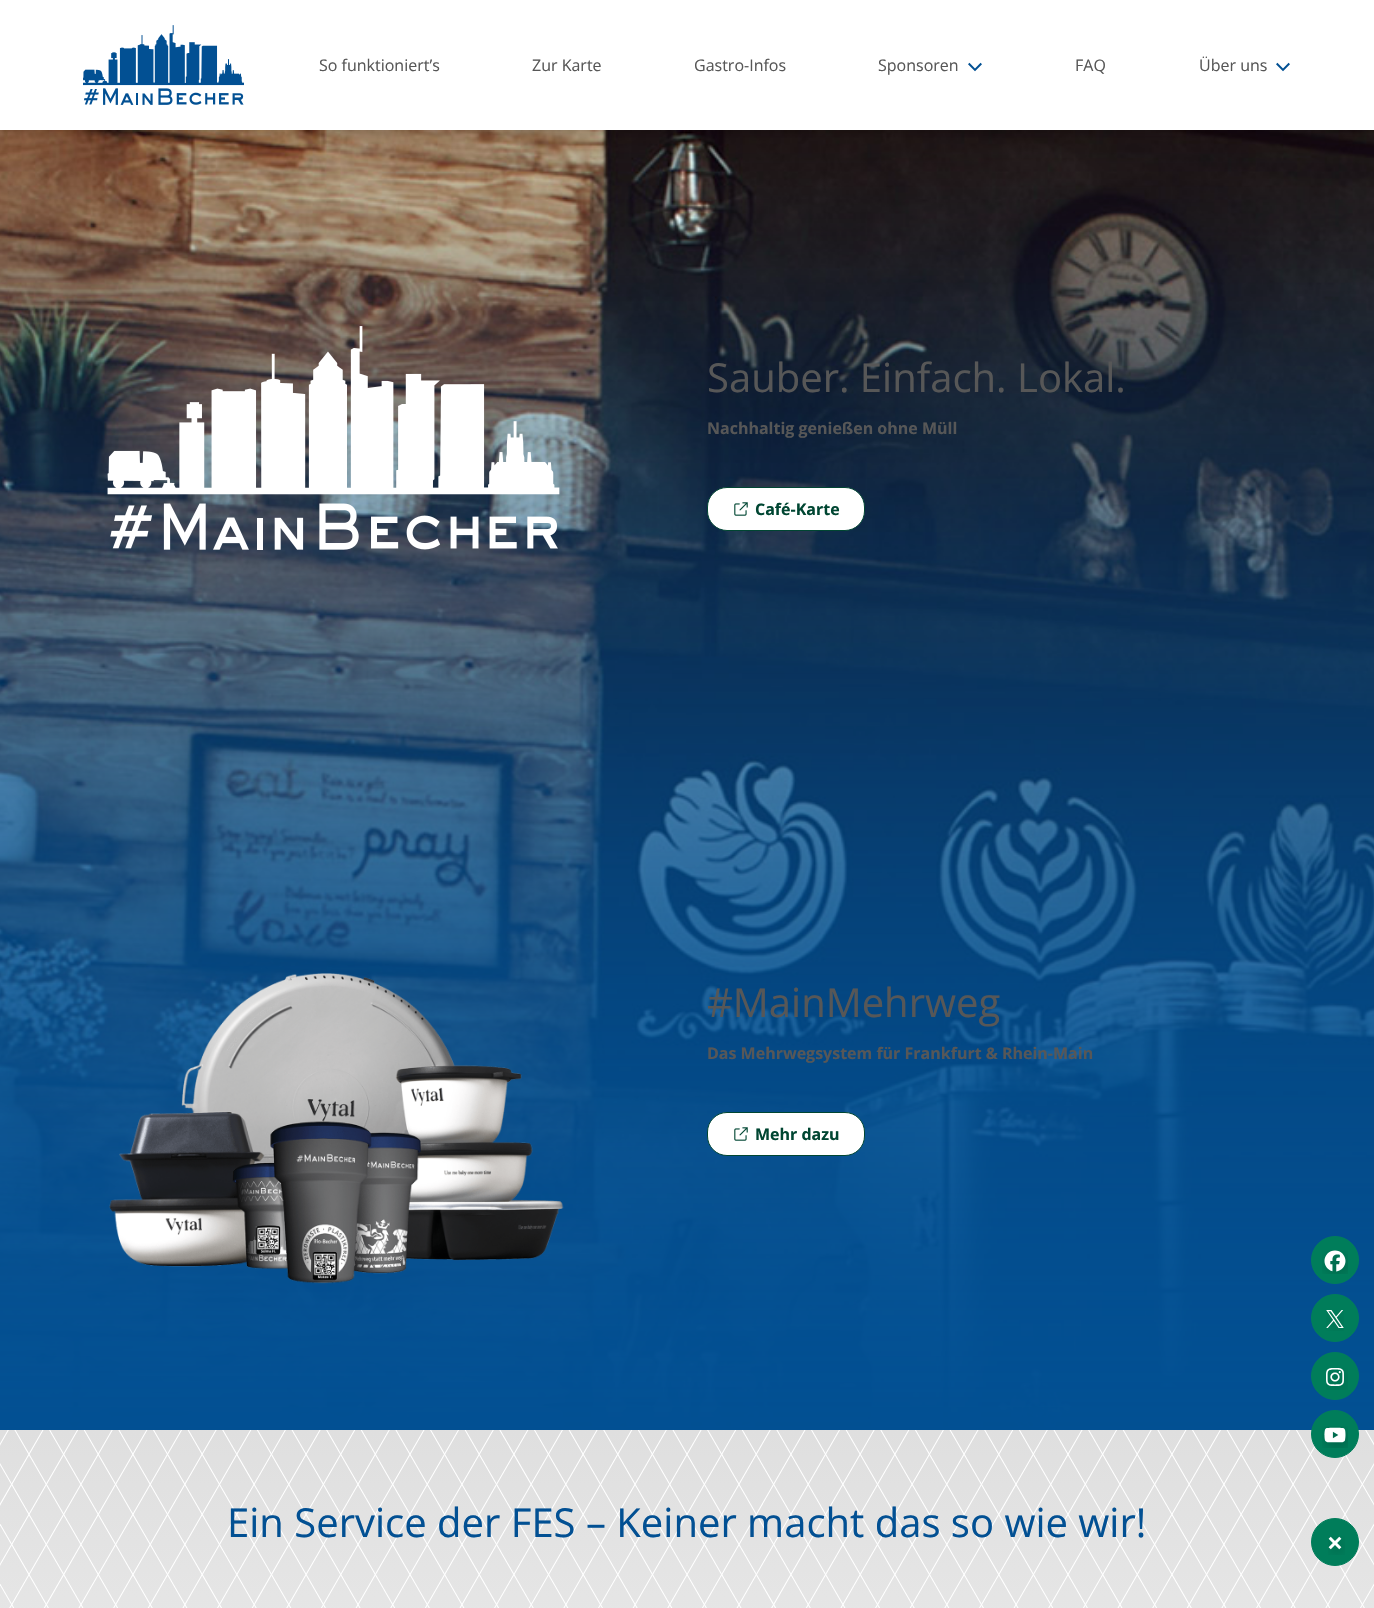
void draw(SkCanvas* canvas) {
    SkPaint paint;
    paint.setAntiAlias(true);
    auto face = [&](const char* family, int weight, float size, bool italic = false) {
        SkFontStyle style(weight, SkFontStyle::kNormal_Width,
            italic ? SkFontStyle::kItalic_Slant : SkFontStyle::kUpright_Slant);
        SkFont result(fontMgr->matchFamilyStyle(family, style), size);
        result.setSubpixel(true);
        return result;
    };
    auto write = [&](const char* s, float x, float y, const SkFont& font, SkColor color) {
        SkPaint ink(SkColor4f::FromColor(color));
        ink.setAntiAlias(true);
        canvas->drawString(s, x, y, font, ink);
    };
    auto block = [&](float x, float y, float w, float h, SkColor color) {
        SkPaint ink(SkColor4f::FromColor(color));
        ink.setAntiAlias(true);
        canvas->drawRect(SkRect::MakeXYWH(x, y, w, h), ink);
    };
    auto paste = [&](const char* path, float x, float y, float w, float h) {
        auto image = SkImages::DeferredFromEncodedData(SkData::MakeFromFileName(path));
        canvas->drawImageRect(image, SkRect::MakeXYWH(x, y, w, h), SkSamplingOptions());
    };
    canvas->clear(SK_ColorWHITE);
    paste("pic3.png", 0, 130, 1374, 1300);
    paint.setColor(SkColorSetARGB(64, 0, 0, 0));
    paint.setMaskFilter(SkMaskFilter::MakeBlur(kNormal_SkBlurStyle, 5));
    canvas->drawRect(SkRect::MakeXYWH(0, 0, 1374, 130), paint);
    paint.setMaskFilter(nullptr);
    block(0, 0, 1374, 130, SK_ColorWHITE);
    paste("pic1.png", 83, 25, 161, 80);
    auto kFont1 = face("Open Sans", 400, 16);
    write("So funktioniert’s", 319, 71, kFont1, SkColorSetRGB(87, 87, 87));
    write("Zur Karte", 532, 71, kFont1, SkColorSetRGB(87, 87, 87));
    write("Gastro-Infos", 694, 71, kFont1, SkColorSetRGB(87, 87, 87));
    write("Sponsoren", 878, 71, kFont1, SkColorSetRGB(87, 87, 87));
    paste("pic2.png", 968, 62, 14, 10);
    write("FAQ", 1075, 71, kFont1, SkColorSetRGB(87, 87, 87));
    write("Über uns", 1199, 71, kFont1, SkColorSetRGB(87, 87, 87));
    paste("pic2.png", 1276, 62, 14, 10);
    paste("pic4.png", 107, 326, 453, 224);
    auto kFont2 = face("Open Sans", 400, 40);
    write("Sauber. Einfach. Lokal.", 707, 392, kFont2, SkColorSetRGB(87, 87, 87));
    auto kFont3 = face("Open Sans", 700, 16);
    write("Nachhaltig genießen ohne Müll", 707, 434, kFont3, SkColorSetRGB(87, 87, 87));
    paint.setColor(SK_ColorWHITE);
    canvas->drawRoundRect(SkRect::MakeXYWH(707.5f, 487.5f, 157, 43), 19.5f, 19.5f, paint);
    paint.setStyle(SkPaint::kStroke_Style);
    paint.setStrokeWidth(1);
    paint.setColor(SkColorSetRGB(0, 70, 50));
    canvas->drawRoundRect(SkRect::MakeXYWH(707.5f, 487.5f, 157, 43), 19.5f, 19.5f, paint);
    paste("pic5.png", 734, 502, 14, 14);
    write("Café-Karte", 755, 515, kFont3, SkColorSetRGB(0, 70, 50));
    paste("pic6.png", 109, 973, 455, 311);
    write("#MainMehrweg", 707, 1017, kFont2, SkColorSetRGB(87, 87, 87));
    write("Das Mehrwegsystem für Frankfurt & Rhein-Main", 707, 1059, kFont3, SkColorSetRGB(87, 87, 87));
    paint.setStyle(SkPaint::kFill_Style);
    paint.setColor(SK_ColorWHITE);
    canvas->drawRoundRect(SkRect::MakeXYWH(707.5f, 1112.5f, 157, 43), 19.5f, 19.5f, paint);
    paint.setStyle(SkPaint::kStroke_Style);
    paint.setColor(SkColorSetRGB(0, 70, 50));
    canvas->drawRoundRect(SkRect::MakeXYWH(707.5f, 1112.5f, 157, 43), 19.5f, 19.5f, paint);
    paste("pic5.png", 734, 1127, 14, 14);
    write("Mehr dazu", 755, 1140, kFont3, SkColorSetRGB(0, 70, 50));
    paste("pic7.png", 0, 1430, 1374, 178);
    write("Ein Service der FES – Keiner macht das so wie wir!", 227, 1537, kFont2, SkColorSetRGB(2, 80, 147));
    paint.setStyle(SkPaint::kFill_Style);
    paint.setColor(SkColorSetRGB(0, 125, 90));
    canvas->drawCircle(1335, 1260, 23.5f, paint);
    paint.setStyle(SkPaint::kStroke_Style);
    canvas->drawCircle(1335, 1260, 23.5f, paint);
    paste("pic8.png", 1322, 1250, 26, 24);
    paint.setStyle(SkPaint::kFill_Style);
    canvas->drawCircle(1335, 1318, 23.5f, paint);
    paint.setStyle(SkPaint::kStroke_Style);
    canvas->drawCircle(1335, 1318, 23.5f, paint);
    paste("pic9.png", 1326, 1310, 18, 21);
    paint.setStyle(SkPaint::kFill_Style);
    canvas->drawCircle(1335, 1376, 23.5f, paint);
    paint.setStyle(SkPaint::kStroke_Style);
    canvas->drawCircle(1335, 1376, 23.5f, paint);
    paste("pic10.png", 1326, 1368, 22, 22);
    paint.setStyle(SkPaint::kFill_Style);
    canvas->drawCircle(1335, 1434, 23.5f, paint);
    paint.setStyle(SkPaint::kStroke_Style);
    canvas->drawCircle(1335, 1434, 23.5f, paint);
    paste("pic11.png", 1322, 1426, 26, 22);
    paint.setStyle(SkPaint::kFill_Style);
    canvas->drawCircle(1335, 1542, 23.5f, paint);
    paint.setStyle(SkPaint::kStroke_Style);
    canvas->drawCircle(1335, 1542, 23.5f, paint);
    paste("pic12.png", 1328, 1536, 17, 19);
}
